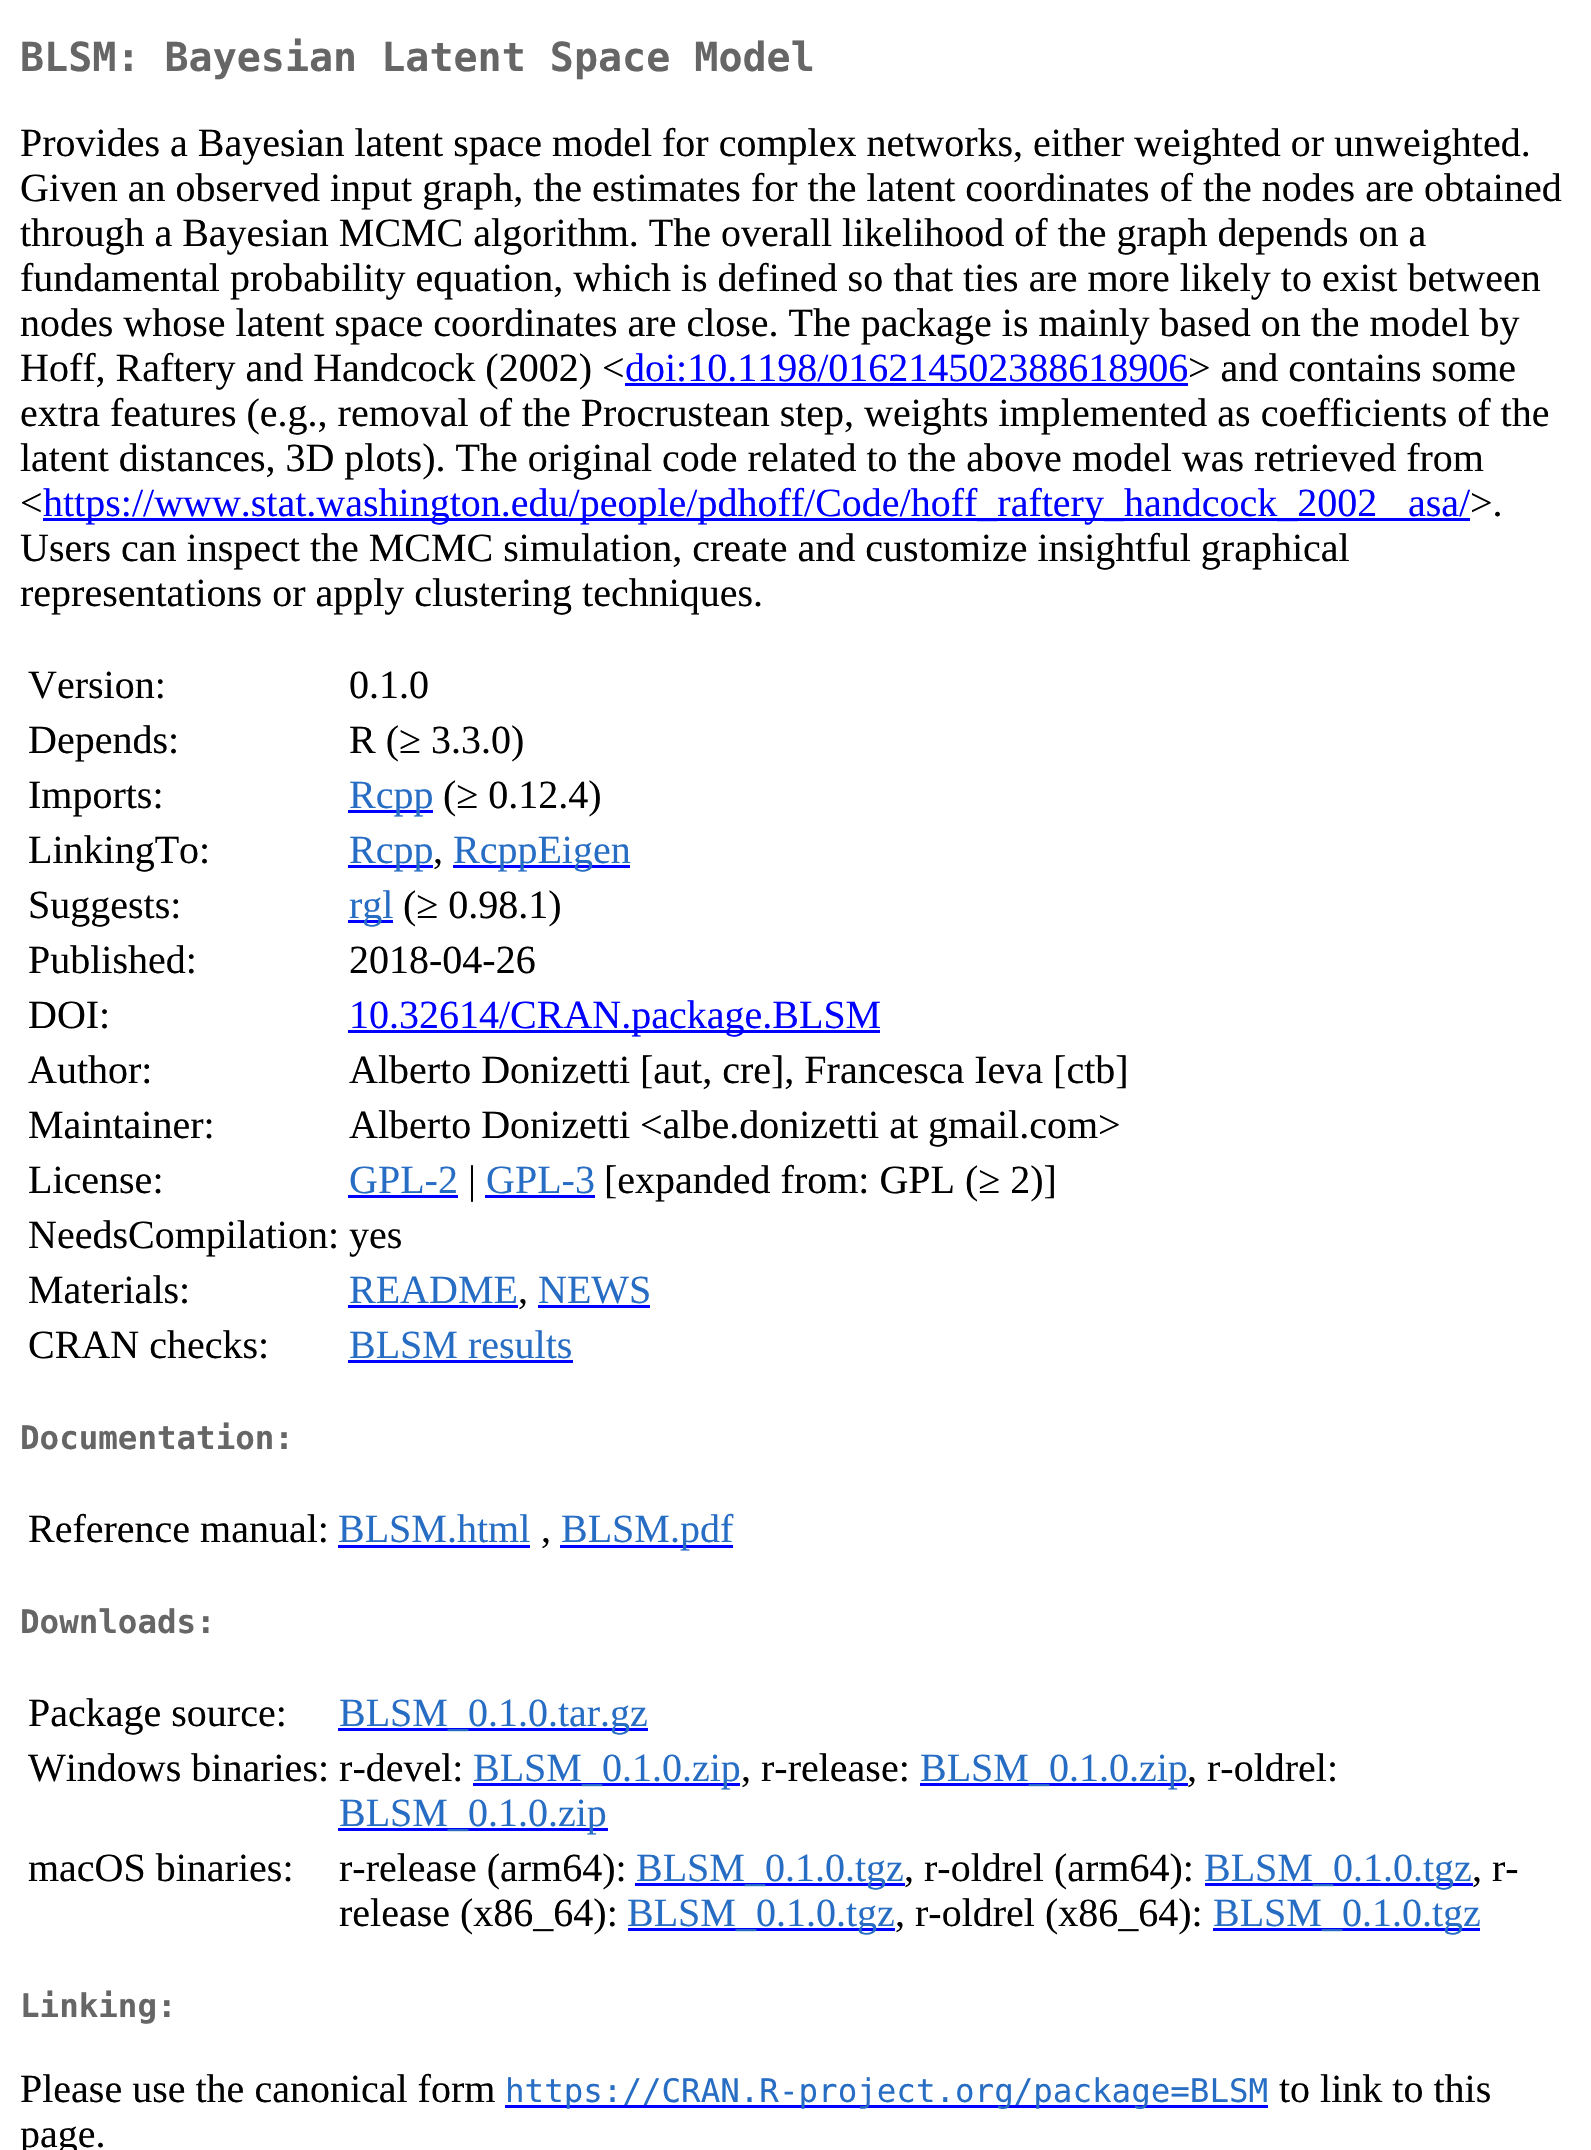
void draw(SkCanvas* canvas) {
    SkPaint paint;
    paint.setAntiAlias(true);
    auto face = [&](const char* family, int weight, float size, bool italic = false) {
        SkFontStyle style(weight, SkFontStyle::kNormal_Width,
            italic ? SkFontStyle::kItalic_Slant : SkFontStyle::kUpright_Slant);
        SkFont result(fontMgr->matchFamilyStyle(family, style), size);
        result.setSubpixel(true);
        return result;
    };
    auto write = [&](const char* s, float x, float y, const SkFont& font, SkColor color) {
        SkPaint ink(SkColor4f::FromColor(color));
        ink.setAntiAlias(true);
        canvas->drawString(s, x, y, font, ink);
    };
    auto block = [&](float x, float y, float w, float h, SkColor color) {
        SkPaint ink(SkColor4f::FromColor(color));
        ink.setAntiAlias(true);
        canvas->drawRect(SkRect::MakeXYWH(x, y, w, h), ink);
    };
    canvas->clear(SK_ColorWHITE);
    auto kFont1 = face("DejaVu Sans Mono", 700, 40);
    write("BLSM: Bayesian Latent Space Model", 20, 71, kFont1, SkColorSetRGB(102, 102, 102));
    auto kFont2 = face("Liberation Serif", 400, 40);
    write("Provides a Bayesian latent space model for complex networks, either weighted or unweighted.", 20, 156, kFont2, SK_ColorBLACK);
    write("Given an observed input graph, the estimates for the latent coordinates of the nodes are obtained", 20, 201, kFont2, SK_ColorBLACK);
    write("through a Bayesian MCMC algorithm. The overall likelihood of the graph depends on a", 20, 246, kFont2, SK_ColorBLACK);
    write("fundamental probability equation, which is defined so that ties are more likely to exist between", 20, 291, kFont2, SK_ColorBLACK);
    write("nodes whose latent space coordinates are close. The package is mainly based on the model by", 20, 336, kFont2, SK_ColorBLACK);
    write("Hoff, Raftery and Handcock (2002) <", 20, 381, kFont2, SK_ColorBLACK);
    write("doi:10.1198/016214502388618906", 625, 381, kFont2, SkColorSetRGB(0, 0, 255));
    block(625, 383, 563, 3, SkColorSetRGB(0, 0, 255));
    write("> and contains some", 1188, 381, kFont2, SK_ColorBLACK);
    write("extra features (e.g., removal of the Procrustean step, weights implemented as coefficients of the", 20, 426, kFont2, SK_ColorBLACK);
    write("latent distances, 3D plots). The original code related to the above model was retrieved from", 20, 471, kFont2, SK_ColorBLACK);
    write("<", 20, 516, kFont2, SK_ColorBLACK);
    block(43, 518, 1427, 3, SkColorSetRGB(0, 0, 255));
    write("https://www.stat.washington.edu/people/pdhoff/Code/hoff_raftery_handcock_2002", 43, 516, kFont2, SkColorSetRGB(0, 0, 255));
    write("asa/", 1408, 516, kFont2, SkColorSetRGB(0, 0, 255));
    write(">.", 1470, 516, kFont2, SK_ColorBLACK);
    write("Users can inspect the MCMC simulation, create and customize insightful graphical", 20, 561, kFont2, SK_ColorBLACK);
    write("representations or apply clustering techniques.", 20, 606, kFont2, SK_ColorBLACK);
    write("Version:", 28, 698, kFont2, SK_ColorBLACK);
    write("0.1.0", 349, 698, kFont2, SK_ColorBLACK);
    write("Depends:", 28, 753, kFont2, SK_ColorBLACK);
    write("R (≥ 3.3.0)", 349, 753, kFont2, SK_ColorBLACK);
    write("Imports:", 28, 808, kFont2, SK_ColorBLACK);
    block(348, 810, 85, 3, SkColorSetRGB(0, 0, 255));
    write("Rcpp", 349, 808, kFont2, SkColorSetRGB(39, 109, 195));
    write("(≥ 0.12.4)", 443, 808, kFont2, SK_ColorBLACK);
    write("LinkingTo:", 28, 863, kFont2, SK_ColorBLACK);
    block(348, 865, 85, 3, SkColorSetRGB(0, 0, 255));
    write("Rcpp", 349, 863, kFont2, SkColorSetRGB(39, 109, 195));
    write(",", 433, 863, kFont2, SK_ColorBLACK);
    block(453, 865, 177, 3, SkColorSetRGB(0, 0, 255));
    write("RcppEigen", 453, 863, kFont2, SkColorSetRGB(39, 109, 195));
    write("Suggests:", 28, 918, kFont2, SK_ColorBLACK);
    block(348, 920, 45, 3, SkColorSetRGB(0, 0, 255));
    write("rgl", 349, 918, kFont2, SkColorSetRGB(39, 109, 195));
    write("(≥ 0.98.1)", 403, 918, kFont2, SK_ColorBLACK);
    write("Published:", 28, 973, kFont2, SK_ColorBLACK);
    write("2018-04-26", 349, 973, kFont2, SK_ColorBLACK);
    write("DOI:", 28, 1028, kFont2, SK_ColorBLACK);
    block(348, 1030, 532, 3, SkColorSetRGB(0, 0, 255));
    write("10.32614/CRAN.package.BLSM", 349, 1028, kFont2, SkColorSetRGB(0, 0, 255));
    write("Author:", 28, 1083, kFont2, SK_ColorBLACK);
    write("Alberto Donizetti [aut, cre], Francesca Ieva [ctb]", 349, 1083, kFont2, SK_ColorBLACK);
    write("Maintainer:", 28, 1138, kFont2, SK_ColorBLACK);
    write("Alberto Donizetti <albe.donizetti at gmail.com>", 349, 1138, kFont2, SK_ColorBLACK);
    write("License:", 28, 1193, kFont2, SK_ColorBLACK);
    write("GPL-2", 349, 1193, kFont2, SkColorSetRGB(39, 109, 195));
    block(348, 1195, 110, 3, SkColorSetRGB(0, 0, 255));
    write("|", 468, 1193, kFont2, SK_ColorBLACK);
    write("GPL-3", 486, 1193, kFont2, SkColorSetRGB(39, 109, 195));
    block(485, 1195, 110, 3, SkColorSetRGB(0, 0, 255));
    write("[expanded from: GPL (≥ 2)]", 604, 1193, kFont2, SK_ColorBLACK);
    write("NeedsCompilation: yes", 28, 1248, kFont2, SK_ColorBLACK);
    write("Materials:", 28, 1303, kFont2, SK_ColorBLACK);
    write("README", 349, 1303, kFont2, SkColorSetRGB(39, 109, 195));
    block(348, 1305, 170, 3, SkColorSetRGB(0, 0, 255));
    write(",", 518, 1303, kFont2, SK_ColorBLACK);
    write("NEWS", 538, 1303, kFont2, SkColorSetRGB(39, 109, 195));
    block(538, 1305, 112, 3, SkColorSetRGB(0, 0, 255));
    write("CRAN checks:", 28, 1358, kFont2, SK_ColorBLACK);
    write("BLSM results", 349, 1358, kFont2, SkColorSetRGB(39, 109, 195));
    block(348, 1360, 225, 3, SkColorSetRGB(0, 0, 255));
    auto kFont3 = face("DejaVu Sans Mono", 700, 32.5f);
    write("Documentation:", 20, 1449, kFont3, SkColorSetRGB(102, 102, 102));
    write("Reference manual:", 28, 1542, kFont2, SK_ColorBLACK);
    write("BLSM.html", 338, 1542, kFont2, SkColorSetRGB(39, 109, 195));
    block(338, 1545, 192, 3, SkColorSetRGB(0, 0, 255));
    write(",", 541, 1542, kFont2, SK_ColorBLACK);
    block(560, 1545, 173, 3, SkColorSetRGB(0, 0, 255));
    write("BLSM.pdf", 561, 1542, kFont2, SkColorSetRGB(39, 109, 195));
    write("Downloads:", 20, 1633, kFont3, SkColorSetRGB(102, 102, 102));
    write("Package source:", 28, 1726, kFont2, SK_ColorBLACK);
    block(338, 1728, 310, 3, SkColorSetRGB(0, 0, 255));
    write("BLSM_0.1.0.tar.gz", 339, 1726, kFont2, SkColorSetRGB(39, 109, 195));
    write("Windows binaries: r-devel:", 28, 1781, kFont2, SK_ColorBLACK);
    block(473, 1783, 267, 3, SkColorSetRGB(0, 0, 255));
    write("BLSM_0.1.0.zip", 473, 1781, kFont2, SkColorSetRGB(39, 109, 195));
    write(", r-release:", 741, 1781, kFont2, SK_ColorBLACK);
    block(920, 1783, 268, 3, SkColorSetRGB(0, 0, 255));
    write("BLSM_0.1.0.zip", 920, 1781, kFont2, SkColorSetRGB(39, 109, 195));
    write(", r-oldrel:", 1187, 1781, kFont2, SK_ColorBLACK);
    block(338, 1828, 270, 3, SkColorSetRGB(0, 0, 255));
    write("BLSM_0.1.0.zip", 339, 1826, kFont2, SkColorSetRGB(39, 109, 195));
    write("macOS binaries:", 28, 1881, kFont2, SK_ColorBLACK);
    write("r-release (arm64):", 339, 1881, kFont2, SK_ColorBLACK);
    block(635, 1883, 270, 3, SkColorSetRGB(0, 0, 255));
    write("BLSM_0.1.0.tgz", 636, 1881, kFont2, SkColorSetRGB(39, 109, 195));
    write(", r-oldrel (arm64):", 904, 1881, kFont2, SK_ColorBLACK);
    block(1205, 1883, 268, 3, SkColorSetRGB(0, 0, 255));
    write("BLSM_0.1.0.tgz", 1204, 1881, kFont2, SkColorSetRGB(39, 109, 195));
    write(", r-", 1472, 1881, kFont2, SK_ColorBLACK);
    write("release (x86_64):", 339, 1926, kFont2, SK_ColorBLACK);
    block(628, 1928, 267, 3, SkColorSetRGB(0, 0, 255));
    write("BLSM_0.1.0.tgz", 627, 1926, kFont2, SkColorSetRGB(39, 109, 195));
    write(", r-oldrel (x86_64):", 895, 1926, kFont2, SK_ColorBLACK);
    block(1213, 1928, 267, 3, SkColorSetRGB(0, 0, 255));
    write("BLSM_0.1.0.tgz", 1213, 1926, kFont2, SkColorSetRGB(39, 109, 195));
    write("Linking:", 20, 2017, kFont3, SkColorSetRGB(102, 102, 102));
    write("Please use the canonical form", 20, 2102, kFont2, SK_ColorBLACK);
    block(505, 2105, 763, 3, SkColorSetRGB(0, 0, 255));
    auto kFont4 = face("DejaVu Sans Mono", 400, 32.5f);
    write("https://CRAN.R-project.org/package=BLSM", 505, 2102, kFont4, SkColorSetRGB(39, 109, 195));
    write("to link to this", 1279, 2102, kFont2, SK_ColorBLACK);
    write("page.", 20, 2147, kFont2, SK_ColorBLACK);
}
